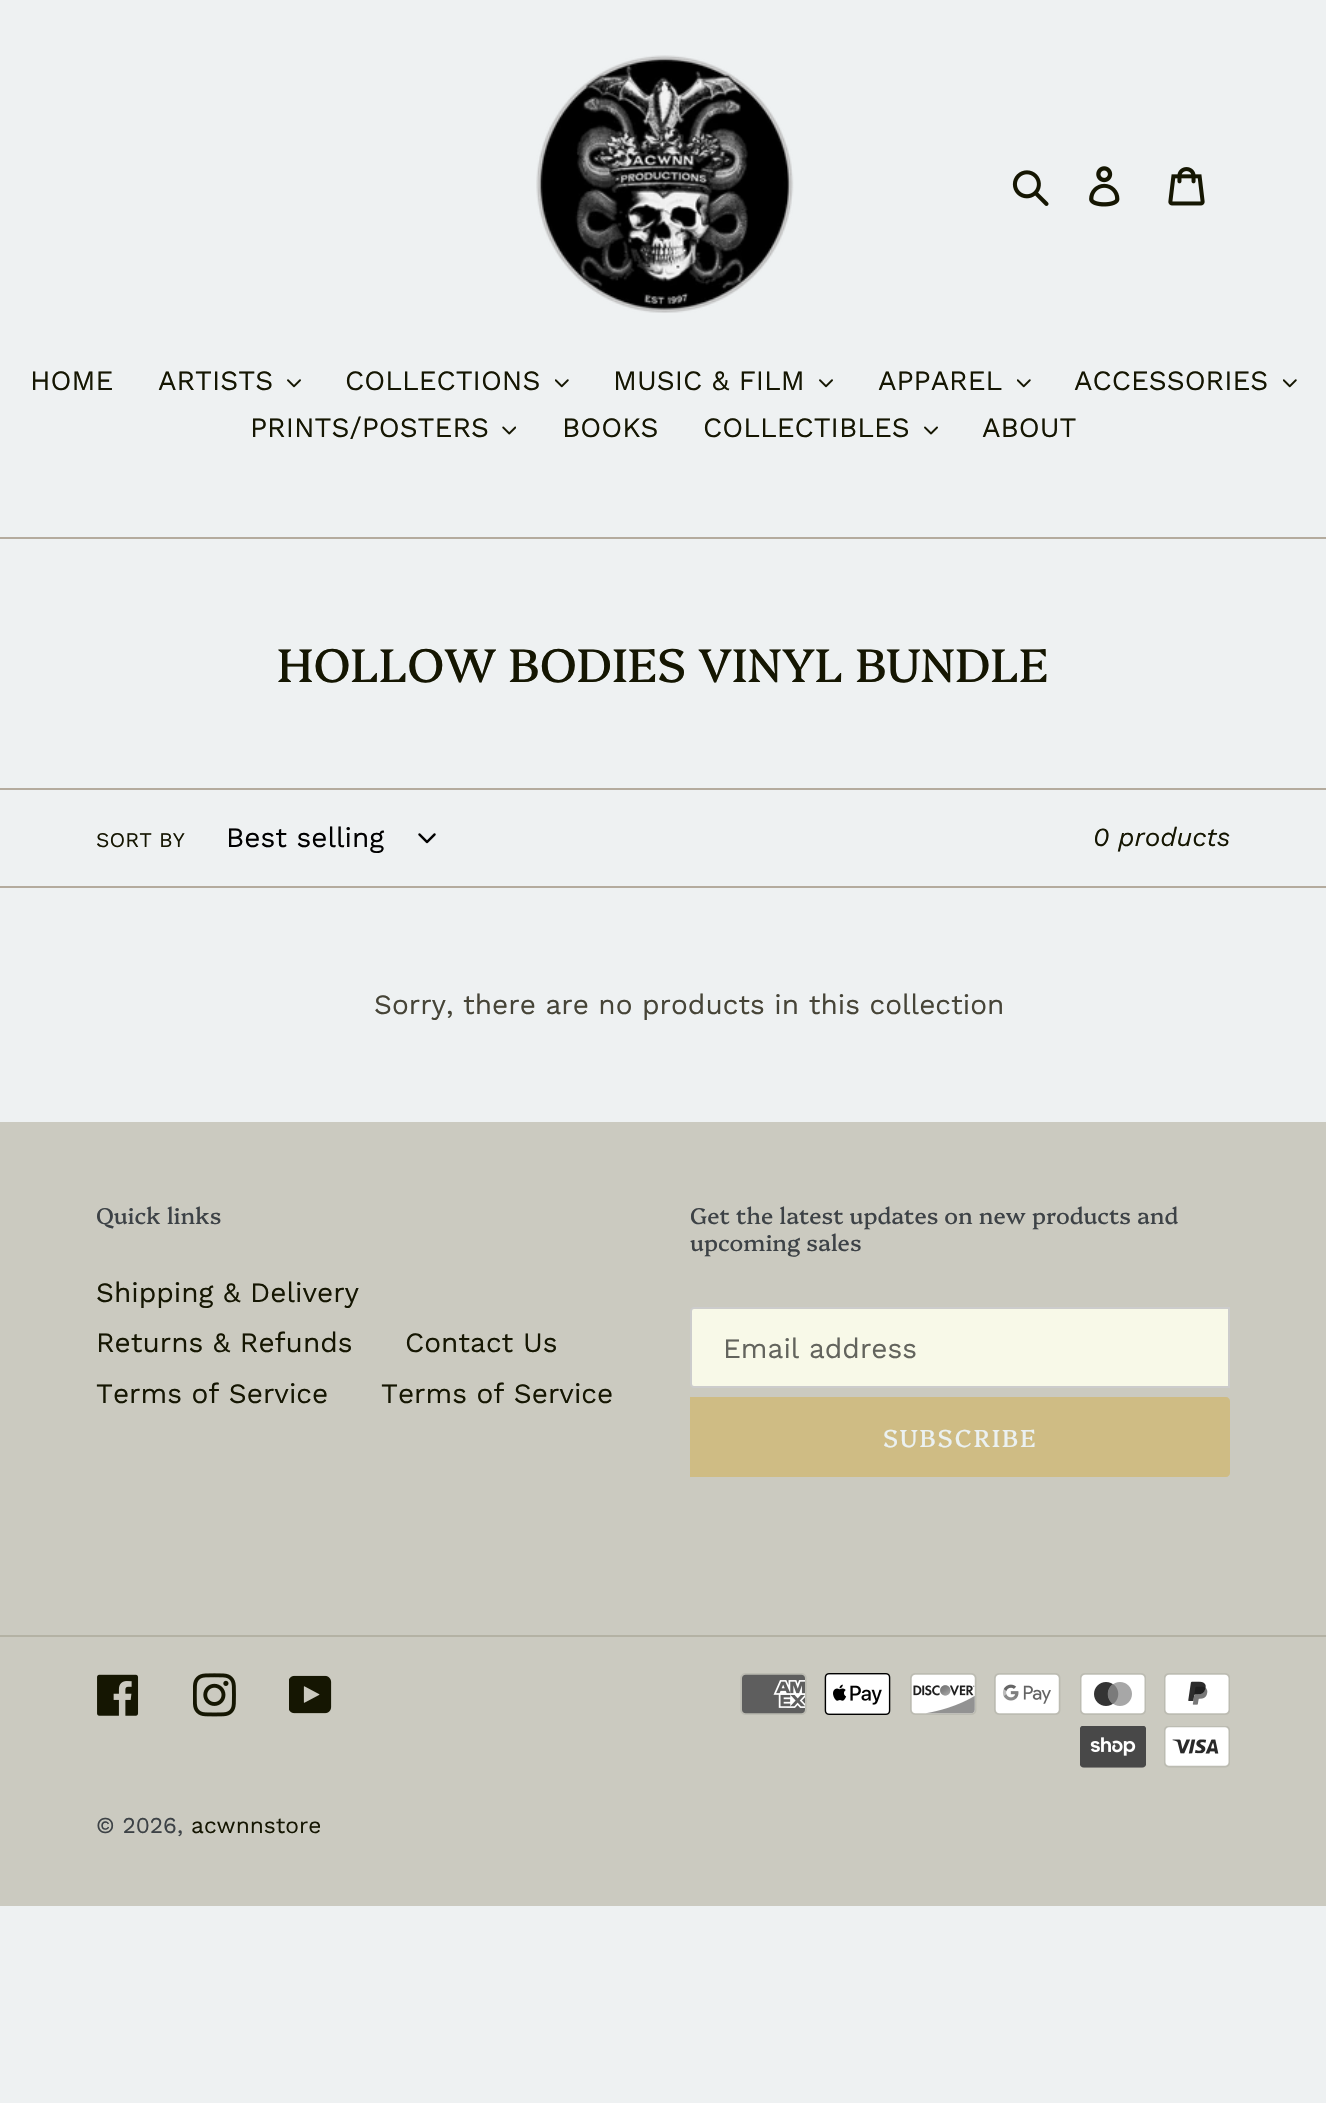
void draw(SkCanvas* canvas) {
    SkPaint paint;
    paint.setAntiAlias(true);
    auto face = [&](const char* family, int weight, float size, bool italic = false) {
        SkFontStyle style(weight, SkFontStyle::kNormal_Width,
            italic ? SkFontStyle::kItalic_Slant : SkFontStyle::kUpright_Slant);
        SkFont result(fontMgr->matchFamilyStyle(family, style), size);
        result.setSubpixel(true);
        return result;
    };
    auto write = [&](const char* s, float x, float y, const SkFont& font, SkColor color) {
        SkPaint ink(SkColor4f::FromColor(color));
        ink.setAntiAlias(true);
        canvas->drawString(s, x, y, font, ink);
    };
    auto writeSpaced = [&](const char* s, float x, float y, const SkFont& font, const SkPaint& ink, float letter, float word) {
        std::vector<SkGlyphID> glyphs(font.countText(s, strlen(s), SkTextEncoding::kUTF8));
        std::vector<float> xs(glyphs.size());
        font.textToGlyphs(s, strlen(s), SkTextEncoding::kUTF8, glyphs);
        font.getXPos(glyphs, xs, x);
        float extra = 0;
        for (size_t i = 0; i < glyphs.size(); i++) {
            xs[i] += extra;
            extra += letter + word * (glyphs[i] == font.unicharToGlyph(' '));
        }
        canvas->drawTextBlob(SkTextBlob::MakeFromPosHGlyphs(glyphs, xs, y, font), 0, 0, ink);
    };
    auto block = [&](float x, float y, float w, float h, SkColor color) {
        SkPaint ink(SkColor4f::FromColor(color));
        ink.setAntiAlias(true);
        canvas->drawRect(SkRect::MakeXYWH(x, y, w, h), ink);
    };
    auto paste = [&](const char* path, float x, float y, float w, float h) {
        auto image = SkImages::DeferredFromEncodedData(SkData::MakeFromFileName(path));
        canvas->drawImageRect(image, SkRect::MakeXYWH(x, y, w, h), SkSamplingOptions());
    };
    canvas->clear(SkColorSetRGB(238, 241, 242));
    paste("pic1.png", 536, 55, 258, 258);
    paste("pic2.png", 1012, 170, 37, 36);
    paste("pic3.png", 1089, 166, 31, 41);
    paste("pic4.png", 1168, 167, 37, 39);
    block(0, 537, 1326, 2, SkColorSetRGB(180, 171, 158));
    auto kFont1 = face("Work Sans", 400, 28);
    write("HOME", 30, 390, kFont1, SkColorSetRGB(21, 22, 2));
    write("ARTISTS", 158, 390, kFont1, SkColorSetRGB(21, 22, 2));
    paste("pic5.png", 287, 379, 14, 9);
    write("COLLECTIONS", 345, 390, kFont1, SkColorSetRGB(21, 22, 2));
    paste("pic6.png", 555, 379, 14, 9);
    write("MUSIC & FILM", 613, 390, kFont1, SkColorSetRGB(21, 22, 2));
    paste("pic5.png", 819, 379, 14, 9);
    write("APPAREL", 878, 390, kFont1, SkColorSetRGB(21, 22, 2));
    paste("pic6.png", 1017, 379, 14, 9);
    write("ACCESSORIES", 1074, 390, kFont1, SkColorSetRGB(21, 22, 2));
    paste("pic6.png", 1283, 379, 14, 9);
    write("PRINTS/POSTERS", 250, 437, kFont1, SkColorSetRGB(21, 22, 2));
    paste("pic7.png", 502, 426, 14, 9);
    write("BOOKS", 562, 437, kFont1, SkColorSetRGB(21, 22, 2));
    write("COLLECTIBLES", 703, 437, kFont1, SkColorSetRGB(21, 22, 2));
    paste("pic8.png", 924, 426, 14, 9);
    write("ABOUT", 982, 437, kFont1, SkColorSetRGB(21, 22, 2));
    auto kFont2 = face("Platypi", 400, 47.25f);
    write("HOLLOW BODIES VINYL BUNDLE", 277, 682, kFont2, SkColorSetRGB(21, 22, 2));
    block(0, 788, 1326, 2, SkColorSetRGB(180, 171, 158));
    block(0, 886, 1326, 2, SkColorSetRGB(180, 171, 158));
    auto kFont3 = face("Work Sans", 400, 21);
    write("SORT BY", 96, 847, kFont3, SkColorSetRGB(21, 22, 2));
    write("Best selling", 226, 847, kFont1, SK_ColorBLACK);
    paste("pic9.png", 418, 833, 18, 11);
    auto kFont4 = face("Work Sans", 400, 26.25f, true);
    write("0 products", 1093, 846, kFont4, SkColorSetRGB(21, 22, 2));
    write("Sorry, there are no products in this collection", 374, 1014, kFont1, SkColorSetRGB(70, 68, 55));
    block(0, 1122, 1326, 784, SkColorSetRGB(203, 202, 192));
    auto kFont5 = face("Platypi", 400, 22.75f);
    write("Quick links", 96, 1224, kFont5, SkColorSetRGB(61, 66, 70));
    write("Shipping & Delivery", 96, 1302, kFont1, SkColorSetRGB(21, 22, 2));
    write("Returns & Refunds", 96, 1352, kFont1, SkColorSetRGB(21, 22, 2));
    write("Contact Us", 405, 1352, kFont1, SkColorSetRGB(21, 22, 2));
    write("Terms of Service", 96, 1403, kFont1, SkColorSetRGB(21, 22, 2));
    write("Terms of Service", 381, 1403, kFont1, SkColorSetRGB(21, 22, 2));
    write("Get the latest updates on new products and", 690, 1224, kFont5, SkColorSetRGB(61, 66, 70));
    write("upcoming sales", 690, 1251, kFont5, SkColorSetRGB(61, 66, 70));
    paint.setColor(SkColorSetRGB(248, 249, 232));
    canvas->drawPath(SkPathBuilder().moveTo(694, 1308).lineTo(1229, 1308).lineTo(1229, 1387).lineTo(694, 1387).cubicTo(692.5f, 1387, 691, 1385.5f, 691, 1384).lineTo(691, 1311).cubicTo(691, 1309.5f, 692.5f, 1308, 694, 1308).close().detach(), paint);
    paint.setStyle(SkPaint::kStroke_Style);
    paint.setStrokeWidth(2);
    paint.setColor(SkColorSetRGB(204, 204, 204));
    canvas->drawPath(SkPathBuilder().moveTo(694, 1308).lineTo(1229, 1308).lineTo(1229, 1387).lineTo(694, 1387).cubicTo(692.5f, 1387, 691, 1385.5f, 691, 1384).lineTo(691, 1311).cubicTo(691, 1309.5f, 692.5f, 1308, 694, 1308).close().detach(), paint);
    write("Email address", 723, 1358, kFont1, SkColorSetRGB(99, 100, 93));
    paint.setStyle(SkPaint::kFill_Style);
    paint.setColor(SkColorSetRGB(207, 188, 132));
    canvas->drawPath(SkPathBuilder().moveTo(690, 1397).lineTo(1226, 1397).cubicTo(1228, 1397, 1230, 1399, 1230, 1401).lineTo(1230, 1473).cubicTo(1230, 1475, 1228, 1477, 1226, 1477).lineTo(690, 1477).close().detach(), paint);
    auto kFont6 = face("Platypi", 400, 24.5f);
    paint.setColor(SkColorSetRGB(235, 241, 241));
    writeSpaced("SUBSCRIBE", 883, 1447, kFont6, paint, 2, 0);
    block(0, 1635, 1326, 2, SkColorSetRGB(180, 178, 164));
    paste("pic10.png", 97, 1674, 42, 42);
    paste("pic11.png", 193, 1673, 43, 44);
    paste("pic12.png", 289, 1675, 43, 39);
    paste("pic13.png", 740, 1673, 67, 42);
    paste("pic14.png", 824, 1673, 67, 42);
    paste("pic15.png", 910, 1673, 67, 42);
    paste("pic16.png", 994, 1673, 67, 42);
    paste("pic17.png", 1080, 1673, 66, 42);
    paste("pic18.png", 1164, 1673, 66, 42);
    paste("pic19.png", 1080, 1726, 66, 42);
    paste("pic20.png", 1164, 1726, 66, 42);
    auto kFont7 = face("Work Sans", 400, 22.75f);
    write("© 2026,", 96, 1833, kFont7, SkColorSetRGB(61, 66, 70));
    write("acwnnstore", 191, 1833, kFont7, SkColorSetRGB(21, 22, 2));
}
